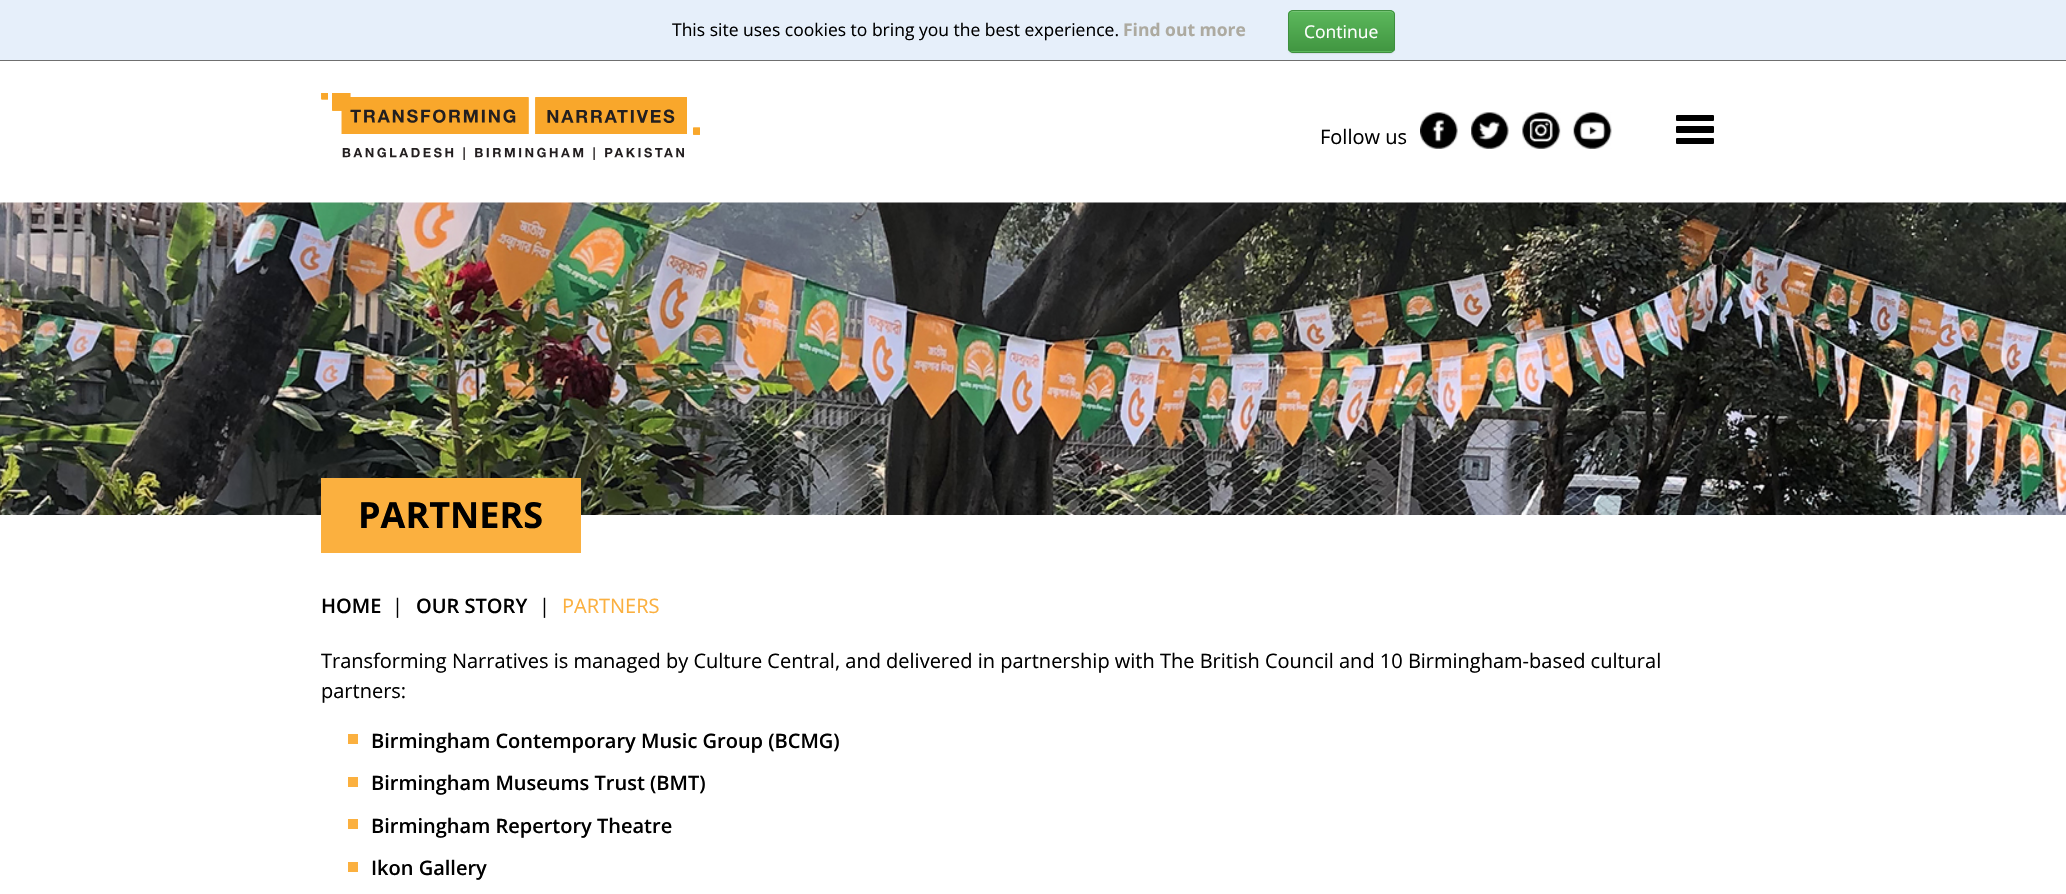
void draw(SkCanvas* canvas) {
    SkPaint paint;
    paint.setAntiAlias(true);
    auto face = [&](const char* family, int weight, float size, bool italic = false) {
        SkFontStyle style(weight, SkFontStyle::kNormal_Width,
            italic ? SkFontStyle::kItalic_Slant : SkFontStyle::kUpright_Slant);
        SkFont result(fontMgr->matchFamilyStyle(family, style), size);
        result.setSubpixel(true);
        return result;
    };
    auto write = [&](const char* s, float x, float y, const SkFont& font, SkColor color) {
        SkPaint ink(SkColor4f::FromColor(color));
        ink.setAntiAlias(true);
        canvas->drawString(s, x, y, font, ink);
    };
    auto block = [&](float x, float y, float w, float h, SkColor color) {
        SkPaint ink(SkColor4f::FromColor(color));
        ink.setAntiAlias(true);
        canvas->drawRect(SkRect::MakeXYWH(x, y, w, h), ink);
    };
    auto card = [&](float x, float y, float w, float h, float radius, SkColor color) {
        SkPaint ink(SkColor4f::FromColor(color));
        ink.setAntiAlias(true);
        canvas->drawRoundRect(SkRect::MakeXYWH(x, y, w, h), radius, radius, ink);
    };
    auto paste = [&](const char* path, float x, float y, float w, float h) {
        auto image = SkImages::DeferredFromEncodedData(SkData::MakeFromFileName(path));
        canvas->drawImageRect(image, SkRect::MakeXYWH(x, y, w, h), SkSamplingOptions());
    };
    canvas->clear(SK_ColorWHITE);
    block(0, 0, 2066, 60, SkColorSetRGB(230, 239, 250));
    block(0, 60, 2066, 1, SkColorSetRGB(111, 111, 111));
    auto kFont1 = face("Open Sans", 400, 17.5f);
    write("This site uses cookies to bring you the best experience.", 672, 36, kFont1, SK_ColorBLACK);
    auto kFont2 = face("Open Sans", 700, 17.5f);
    write("Find out more", 1123, 36, kFont2, SkColorSetRGB(173, 170, 160));
    paint.setColor(SkColorSetARGB(18, 0, 0, 0));
    paint.setMaskFilter(SkMaskFilter::MakeBlur(kNormal_SkBlurStyle, 0.5f));
    canvas->drawRoundRect(SkRect::MakeXYWH(1288, 11, 107, 43), 5, 5, paint);
    paint.setMaskFilter(nullptr);
    card(1288, 10, 107, 43, 5, SkColorSetRGB(92, 184, 92));
    canvas->save();
    canvas->clipPath(SkPathBuilder().moveTo(1293, 10).lineTo(1390, 10).cubicTo(1393, 10, 1395, 12, 1395, 15).lineTo(1395, 48).cubicTo(1395, 51, 1393, 53, 1390, 53).lineTo(1293, 53).cubicTo(1290, 53, 1288, 51, 1288, 48).lineTo(1288, 15).cubicTo(1288, 12, 1290, 10, 1293, 10).close().detach(), true);
    {
        const SkColor colors[] = {SkColorSetRGB(92, 184, 92), SkColorSetRGB(65, 150, 65)};
        const float stops[] = {0, 1};
        const SkPoint ends[] = {{1341, 11}, {1341, 51}};
        paint.setShader(SkGradientShader::MakeLinear(ends, colors, stops, 2, SkTileMode::kClamp));
        paint.setAlpha(255);
    }
    canvas->drawRect(SkRect::MakeXYWH(1288, 11, 107, 40), paint);
    canvas->restore();
    paint.setShader(nullptr);
    paint.setColor(SkColorSetRGB(116, 195, 116));
    canvas->drawPath(SkPathBuilder().moveTo(1292, 12).lineTo(1390, 12).cubicTo(1392, 12, 1394, 14, 1394, 16).cubicTo(1394, 7, 1378, 11, 1374, 11).lineTo(1309, 11).cubicTo(1305, 11, 1289, 7, 1289, 16).cubicTo(1289, 14, 1290, 12, 1292, 12).close().detach(), paint);
    paint.setStyle(SkPaint::kStroke_Style);
    paint.setStrokeWidth(1);
    paint.setColor(SkColorSetRGB(62, 143, 62));
    canvas->drawRoundRect(SkRect::MakeXYWH(1288.5f, 10.5f, 106, 42), 4.5f, 4.5f, paint);
    write("Continue", 1304, 38, kFont1, SK_ColorWHITE);
    paste("pic1.png", 321, 93, 379, 67);
    auto kFont3 = face("Open Sans", 400, 20);
    write("Follow us", 1320, 144, kFont3, SK_ColorBLACK);
    paste("pic2.png", 1420, 112, 38, 37);
    paste("pic3.png", 1471, 112, 38, 37);
    paste("pic4.png", 1522, 112, 39, 37);
    paste("pic5.png", 1573, 112, 39, 37);
    card(1676, 115, 38, 6, 1, SK_ColorBLACK);
    card(1676, 126, 38, 7, 1, SK_ColorBLACK);
    card(1676, 138, 38, 6, 1, SK_ColorBLACK);
    paste("pic6.png", 0, 202, 2066, 313);
    block(321, 478, 260, 75, SkColorSetRGB(251, 176, 63));
    auto kFont4 = face("Open Sans", 700, 36);
    write("PARTNERS", 358, 528, kFont4, SK_ColorBLACK);
    auto kFont5 = face("Open Sans", 600, 20);
    write("HOME", 321, 613, kFont5, SK_ColorBLACK);
    write("|", 392, 613, kFont3, SK_ColorBLACK);
    write("OUR STORY", 416, 613, kFont5, SK_ColorBLACK);
    write("|", 539, 613, kFont3, SK_ColorBLACK);
    write("PARTNERS", 562, 613, kFont3, SkColorSetRGB(251, 176, 64));
    write("Transforming Narratives is managed by Culture Central, and delivered in partnership with The British Council and 10 Birmingham-based cultural", 321, 668, kFont3, SK_ColorBLACK);
    write("partners:", 321, 698, kFont3, SK_ColorBLACK);
    block(348, 734, 10, 10, SkColorSetRGB(251, 176, 63));
    write("Birmingham Contemporary Music Group (BCMG)", 371, 748, kFont5, SK_ColorBLACK);
    block(348, 777, 10, 10, SkColorSetRGB(251, 176, 63));
    write("Birmingham Museums Trust (BMT)", 371, 790, kFont5, SK_ColorBLACK);
    block(348, 819, 10, 10, SkColorSetRGB(251, 176, 63));
    write("Birmingham Repertory Theatre", 371, 833, kFont5, SK_ColorBLACK);
    block(348, 862, 10, 10, SkColorSetRGB(251, 176, 63));
    write("Ikon Gallery", 371, 875, kFont5, SK_ColorBLACK);
}
